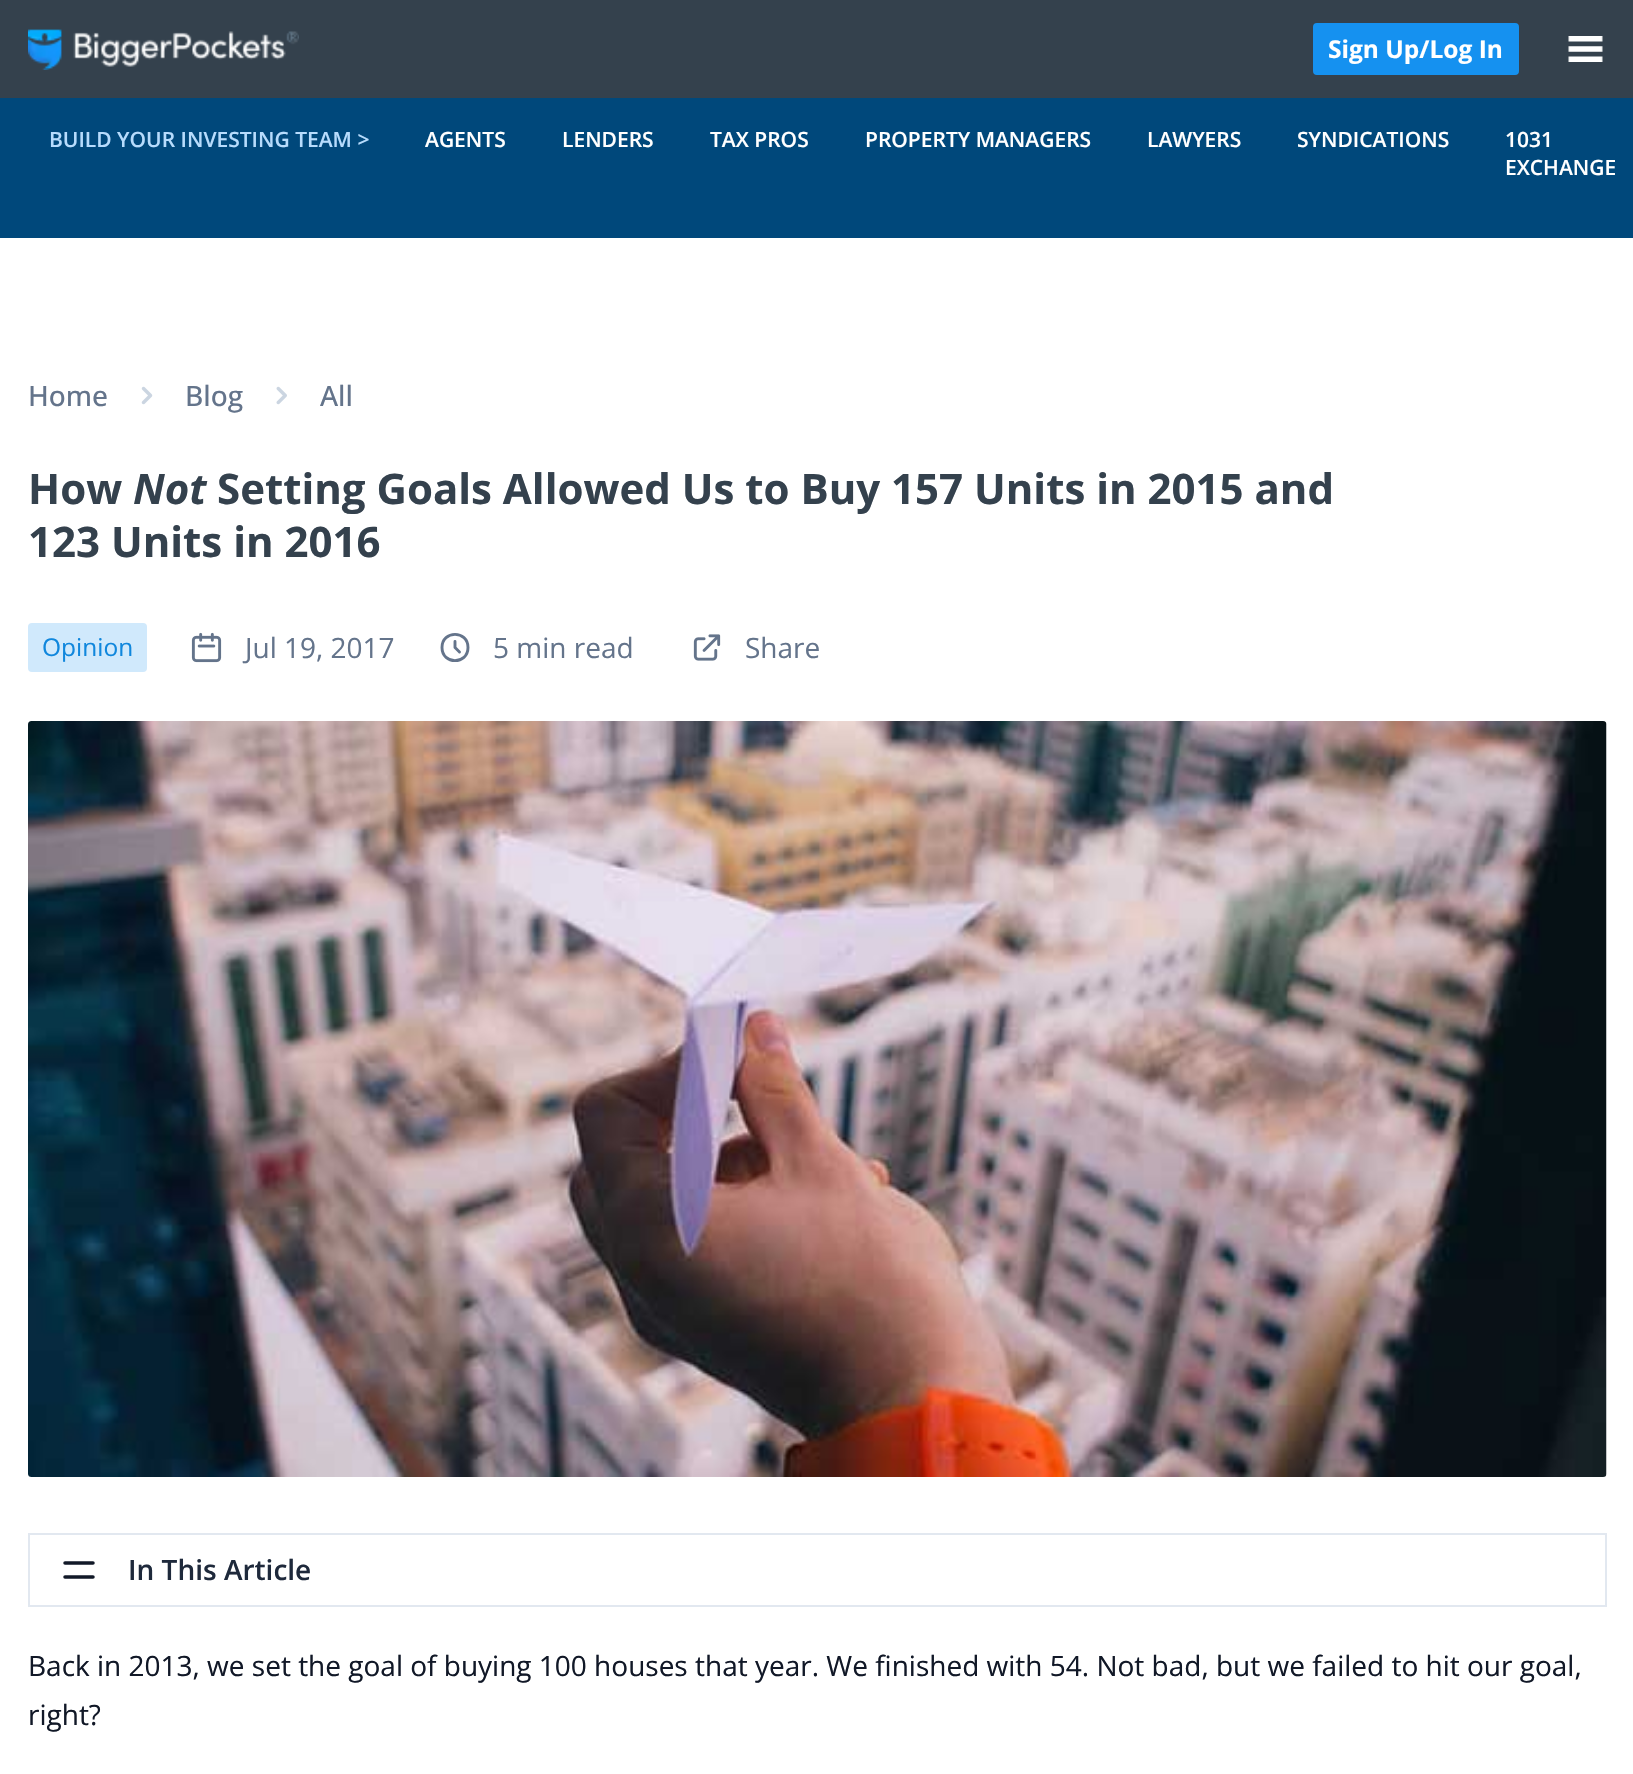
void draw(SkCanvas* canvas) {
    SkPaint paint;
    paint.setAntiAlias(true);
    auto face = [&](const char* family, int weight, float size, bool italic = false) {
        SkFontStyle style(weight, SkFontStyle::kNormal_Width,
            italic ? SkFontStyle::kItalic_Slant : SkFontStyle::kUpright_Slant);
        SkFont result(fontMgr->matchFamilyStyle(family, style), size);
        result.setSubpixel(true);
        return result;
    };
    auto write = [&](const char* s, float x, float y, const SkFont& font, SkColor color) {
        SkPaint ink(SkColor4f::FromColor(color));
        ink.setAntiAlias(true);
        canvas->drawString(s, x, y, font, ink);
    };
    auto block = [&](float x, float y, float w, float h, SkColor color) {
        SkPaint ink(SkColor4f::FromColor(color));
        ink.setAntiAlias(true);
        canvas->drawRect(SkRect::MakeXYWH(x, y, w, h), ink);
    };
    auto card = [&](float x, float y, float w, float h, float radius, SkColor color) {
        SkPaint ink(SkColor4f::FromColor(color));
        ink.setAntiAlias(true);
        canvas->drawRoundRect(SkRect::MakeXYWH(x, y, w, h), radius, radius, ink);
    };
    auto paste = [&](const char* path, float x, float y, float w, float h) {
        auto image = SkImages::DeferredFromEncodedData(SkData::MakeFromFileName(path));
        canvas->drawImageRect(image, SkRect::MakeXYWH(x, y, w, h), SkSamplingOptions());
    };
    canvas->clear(SK_ColorWHITE);
    block(0, 0, 1633, 98, SkColorSetRGB(52, 65, 77));
    paste("pic1.png", 28, 29, 271, 41);
    paint.setColor(SkColorSetRGB(21, 145, 240));
    canvas->drawRoundRect(SkRect::MakeXYWH(1314, 24, 204, 50), 3, 3, paint);
    paint.setStyle(SkPaint::kStroke_Style);
    paint.setStrokeWidth(2);
    canvas->drawRoundRect(SkRect::MakeXYWH(1314, 24, 204, 50), 3, 3, paint);
    auto kFont1 = face("Open Sans", 700, 24.5f);
    write("Sign Up/Log In", 1328, 58, kFont1, SK_ColorWHITE);
    paste("pic2.png", 1568, 36, 35, 26);
    block(0, 98, 1633, 140, SkColorSetRGB(0, 72, 123));
    auto kFont2 = face("Open Sans", 600, 21);
    write("BUILD YOUR INVESTING TEAM >", 49, 147, kFont2, SkColorSetRGB(183, 220, 253));
    write("AGENTS", 425, 147, kFont2, SK_ColorWHITE);
    write("LENDERS", 562, 147, kFont2, SK_ColorWHITE);
    write("TAX PROS", 710, 147, kFont2, SK_ColorWHITE);
    write("PROPERTY MANAGERS", 865, 147, kFont2, SK_ColorWHITE);
    write("LAWYERS", 1147, 147, kFont2, SK_ColorWHITE);
    write("SYNDICATIONS", 1297, 147, kFont2, SK_ColorWHITE);
    write("1031", 1505, 147, kFont2, SK_ColorWHITE);
    write("EXCHANGE", 1505, 175, kFont2, SK_ColorWHITE);
    auto kFont3 = face("Open Sans", 500, 28);
    write("Home", 28, 406, kFont3, SkColorSetRGB(100, 116, 139));
    paste("pic3.png", 141, 386, 12, 19);
    write("Blog", 185, 406, kFont3, SkColorSetRGB(100, 116, 139));
    paste("pic4.png", 276, 386, 11, 19);
    write("All", 320, 406, kFont3, SkColorSetRGB(100, 116, 139));
    auto kFont4 = face("Open Sans", 700, 42);
    write("How", 28, 504, kFont4, SkColorSetRGB(52, 65, 77));
    auto kFont5 = face("Open Sans", 700, 42, true);
    write("Not", 133, 504, kFont5, SkColorSetRGB(52, 65, 77));
    write("Setting Goals Allowed Us to Buy 157 Units in 2015 and", 217, 504, kFont4, SkColorSetRGB(52, 65, 77));
    write("123 Units in 2016", 28, 557, kFont4, SkColorSetRGB(52, 65, 77));
    card(28, 623, 119, 49, 4, SkColorSetRGB(208, 233, 252));
    auto kFont6 = face("Open Sans", 400, 24.5f);
    write("Opinion", 42, 656, kFont6, SkColorSetRGB(16, 135, 221));
    paste("pic5.png", 191, 632, 31, 31);
    auto kFont7 = face("Open Sans", 400, 28);
    write("Jul 19, 2017", 245, 658, kFont7, SkColorSetRGB(100, 116, 139));
    paint.setStrokeWidth(2.9f);
    paint.setStrokeCap(SkPaint::kRound_Cap);
    paint.setStrokeJoin(SkPaint::kRound_Join);
    paint.setColor(SkColorSetRGB(100, 116, 139));
    canvas->drawPath(SkPathBuilder().moveTo(455, 641.5f).lineTo(455, 647.5f).lineTo(459.5f, 652).moveTo(468, 647.5f).cubicTo(468, 665, 442, 665, 442, 647.5f).cubicTo(442, 630, 468, 630, 468, 647.5f).close().detach(), paint);
    write("5 min read", 493, 658, kFont7, SkColorSetRGB(100, 116, 139));
    paste("pic6.png", 693, 634, 28, 27);
    write("Share", 745, 658, kFont7, SkColorSetRGB(100, 116, 139));
    paste("pic7.png", 28, 721, 1579, 756);
    paint.setStrokeWidth(2);
    paint.setStrokeCap(SkPaint::kButt_Cap);
    paint.setStrokeJoin(SkPaint::kMiter_Join);
    paint.setColor(SkColorSetRGB(226, 232, 240));
    canvas->drawRect(SkRect::MakeXYWH(29, 1534, 1577, 72), paint);
    paint.setStrokeWidth(3.5f);
    paint.setStrokeCap(SkPaint::kRound_Cap);
    paint.setStrokeJoin(SkPaint::kRound_Join);
    paint.setColor(SkColorSetRGB(17, 24, 39));
    canvas->drawPath(SkPathBuilder().moveTo(65, 1563).lineTo(93, 1563).moveTo(65, 1577).lineTo(93, 1577).detach(), paint);
    auto kFont8 = face("Open Sans", 600, 28);
    write("In This Article", 128, 1580, kFont8, SkColorSetRGB(30, 41, 59));
    write("Back in 2013, we set the goal of buying 100 houses that year. We finished with 54. Not bad, but we failed to hit our goal,", 28, 1676, kFont7, SkColorSetRGB(17, 24, 39));
    write("right?", 28, 1725, kFont7, SkColorSetRGB(17, 24, 39));
}
